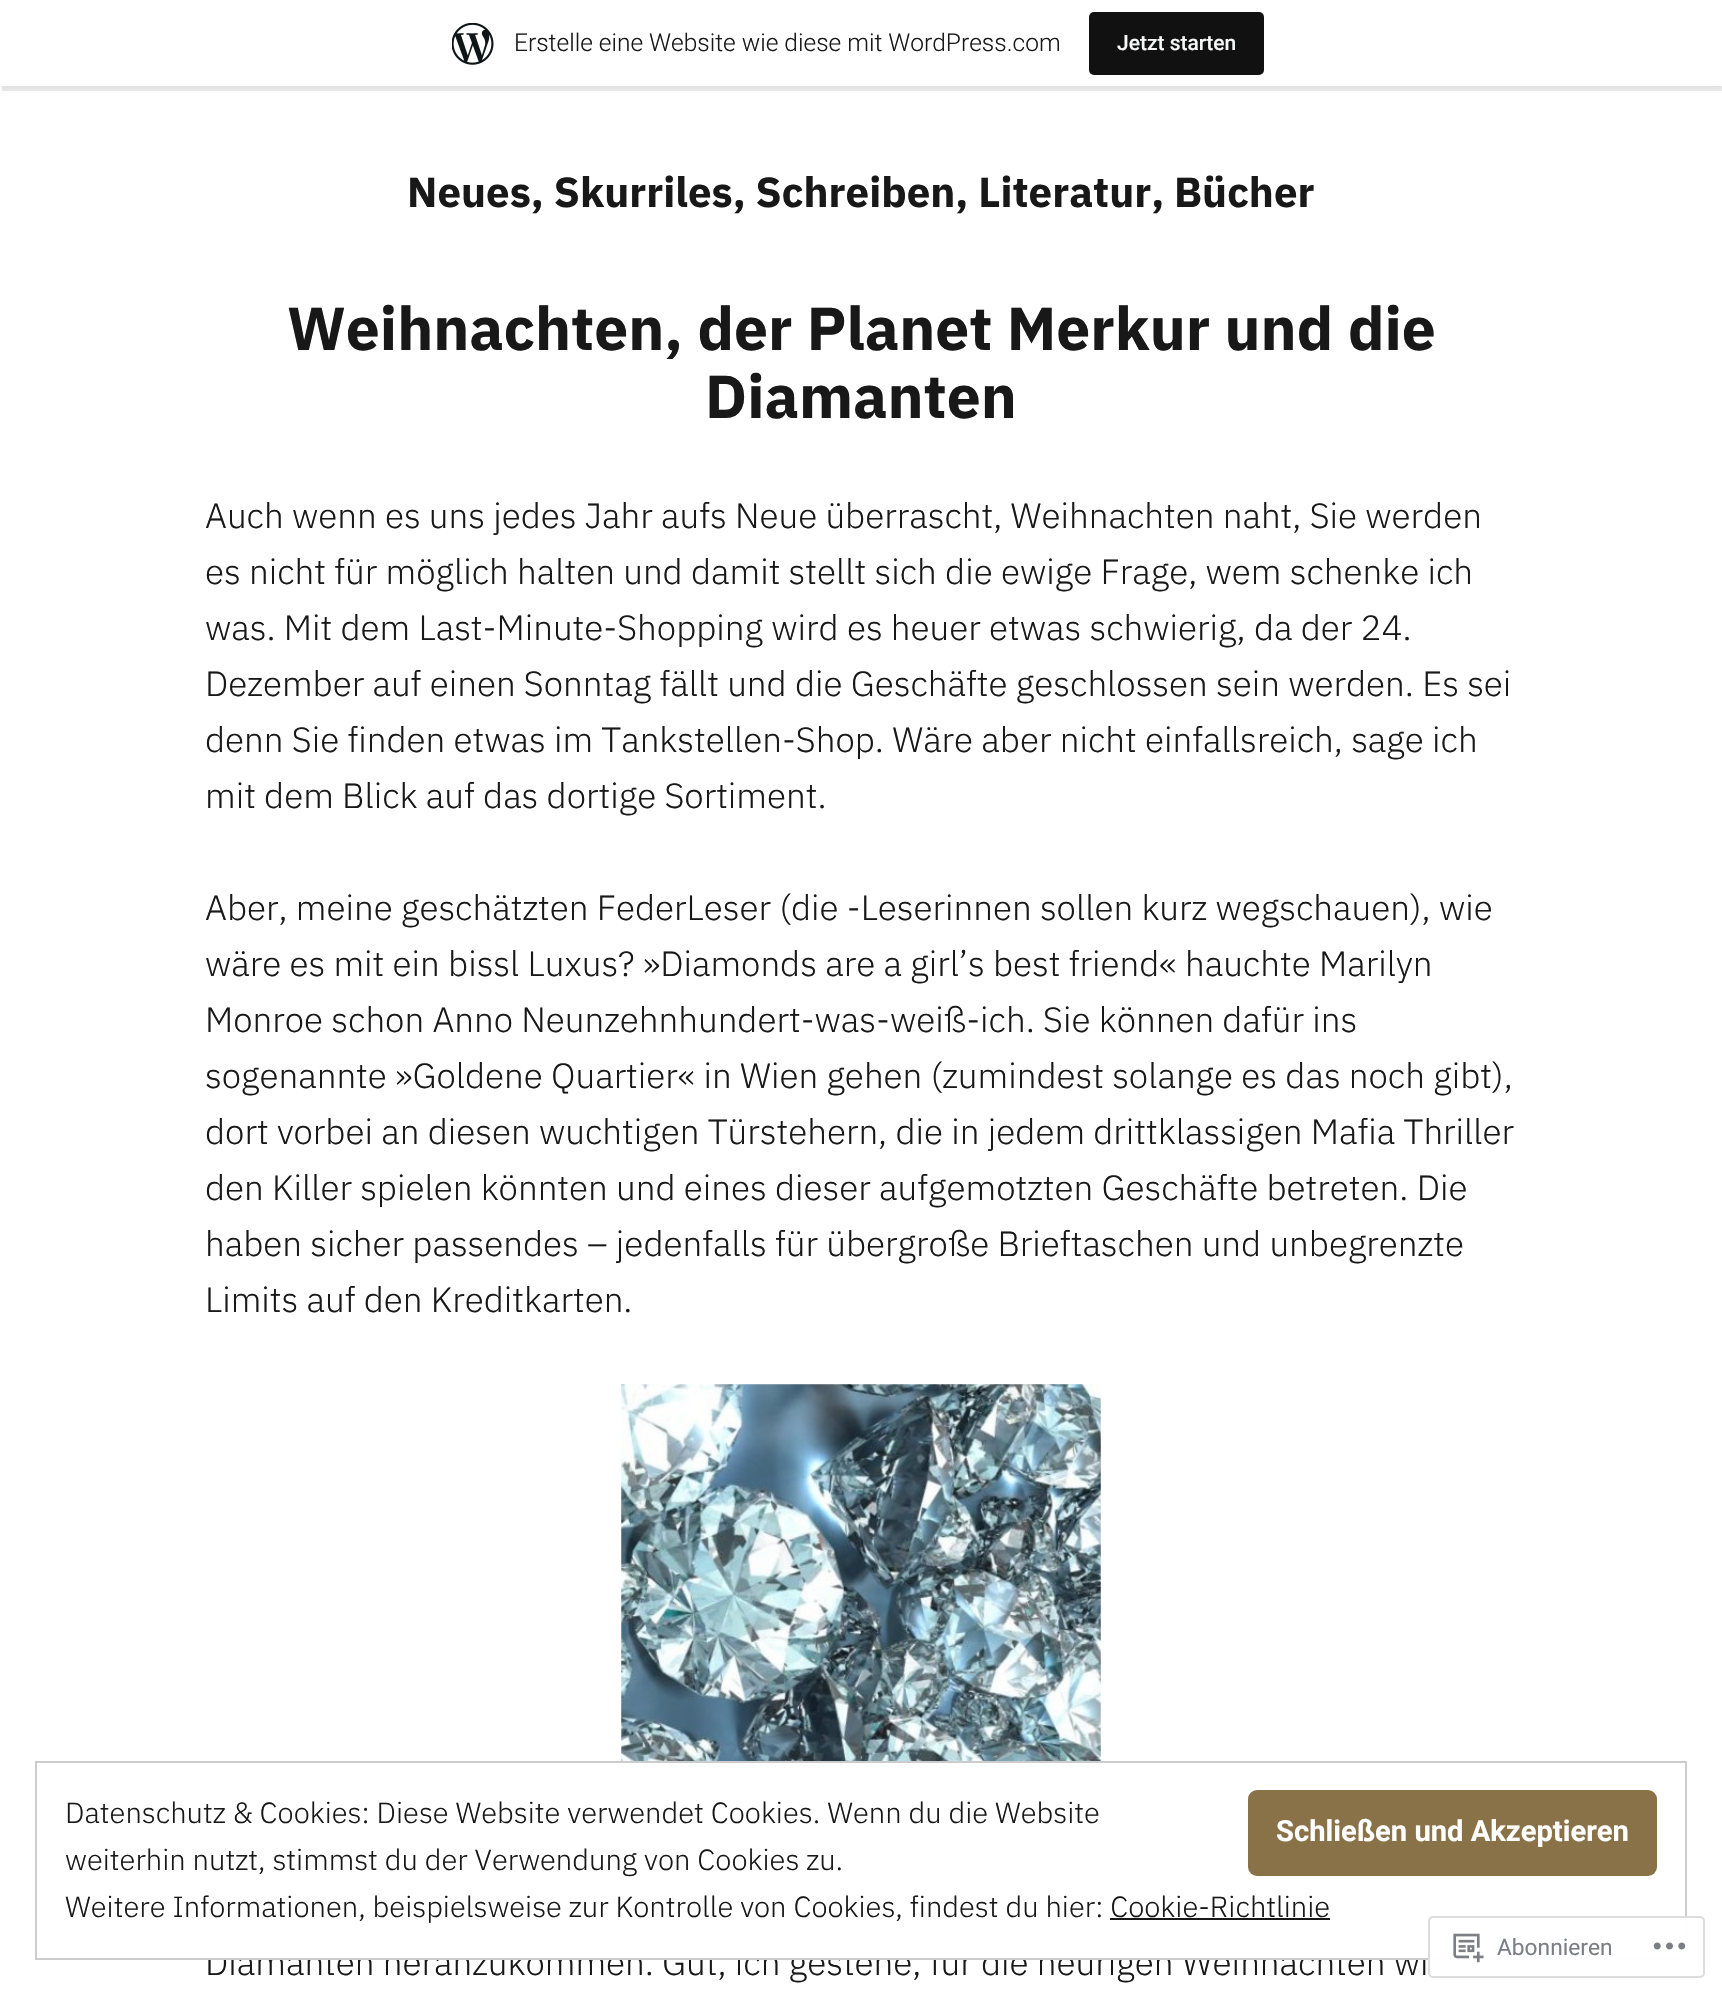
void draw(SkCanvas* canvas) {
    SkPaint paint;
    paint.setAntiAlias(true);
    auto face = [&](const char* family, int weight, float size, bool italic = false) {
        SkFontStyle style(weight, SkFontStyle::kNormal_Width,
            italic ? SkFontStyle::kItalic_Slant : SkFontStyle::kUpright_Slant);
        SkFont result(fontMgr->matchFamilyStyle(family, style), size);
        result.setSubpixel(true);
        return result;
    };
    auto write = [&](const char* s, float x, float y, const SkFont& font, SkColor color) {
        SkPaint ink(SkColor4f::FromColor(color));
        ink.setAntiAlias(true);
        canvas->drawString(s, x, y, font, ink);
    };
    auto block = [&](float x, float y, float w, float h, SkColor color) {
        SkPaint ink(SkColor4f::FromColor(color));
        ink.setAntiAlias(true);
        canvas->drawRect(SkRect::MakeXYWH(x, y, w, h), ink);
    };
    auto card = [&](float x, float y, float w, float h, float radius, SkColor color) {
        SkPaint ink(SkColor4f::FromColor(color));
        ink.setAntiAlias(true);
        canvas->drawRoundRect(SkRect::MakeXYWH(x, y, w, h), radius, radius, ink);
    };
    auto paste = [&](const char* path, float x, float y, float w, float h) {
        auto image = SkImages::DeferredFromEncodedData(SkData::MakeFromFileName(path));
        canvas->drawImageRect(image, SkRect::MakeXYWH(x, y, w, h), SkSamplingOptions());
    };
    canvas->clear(SK_ColorWHITE);
    paint.setColor(SkColorSetARGB(13, 0, 0, 0));
    paint.setMaskFilter(SkMaskFilter::MakeBlur(kNormal_SkBlurStyle, 2));
    canvas->drawRect(SkRect::MakeXYWH(0, 2, 1722, 86), paint);
    paint.setMaskFilter(nullptr);
    paint.setColor(SkColorSetARGB(20, 0, 0, 0));
    canvas->drawPath(SkPathBuilder().moveTo(2, 86).lineTo(2, 91).lineTo(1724, 91).lineTo(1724, 5).lineTo(1722, 5).lineTo(1722, 86).close().detach(), paint);
    block(0, 0, 1722, 86, SK_ColorWHITE);
    paste("pic1.png", 452, 23, 42, 42);
    auto kFont1 = face("Roboto", 300, 24.5f);
    write("Erstelle eine Website wie diese mit WordPress.com", 514, 51, kFont1, SkColorSetRGB(24, 24, 24));
    card(1089, 12, 175, 63, 5, SkColorSetRGB(17, 17, 17));
    auto kFont2 = face("Roboto", 500, 21);
    write("Jetzt starten", 1117, 50, kFont2, SkColorSetRGB(246, 247, 247));
    auto kFont3 = face("IBM Plex Sans", 700, 42);
    write("Neues, Skurriles, Schreiben, Literatur, Bücher", 407, 207, kFont3, SkColorSetRGB(24, 24, 24));
    auto kFont4 = face("IBM Plex Sans", 700, 60.5f);
    write("Weihnachten, der Planet Merkur und die", 287, 350, kFont4, SkColorSetRGB(24, 24, 24));
    write("Diamanten", 705, 418, kFont4, SkColorSetRGB(24, 24, 24));
    auto kFont5 = face("IBM Plex Sans", 300, 35);
    write("Auch wenn es uns jedes Jahr aufs Neue überrascht, Weihnachten naht, Sie werden", 205, 528, kFont5, SkColorSetRGB(24, 24, 24));
    write("es nicht für möglich halten und damit stellt sich die ewige Frage, wem schenke ich", 205, 584, kFont5, SkColorSetRGB(24, 24, 24));
    write("was. Mit dem Last-Minute-Shopping wird es heuer etwas schwierig, da der 24.", 205, 640, kFont5, SkColorSetRGB(24, 24, 24));
    write("Dezember auf einen Sonntag fällt und die Geschäfte geschlossen sein werden. Es sei", 205, 696, kFont5, SkColorSetRGB(24, 24, 24));
    write("denn Sie finden etwas im Tankstellen-Shop. Wäre aber nicht einfallsreich, sage ich", 205, 752, kFont5, SkColorSetRGB(24, 24, 24));
    write("mit dem Blick auf das dortige Sortiment.", 205, 808, kFont5, SkColorSetRGB(24, 24, 24));
    write("Aber, meine geschätzten FederLeser (die -Leserinnen sollen kurz wegschauen), wie", 205, 920, kFont5, SkColorSetRGB(24, 24, 24));
    write("wäre es mit ein bissl Luxus? »Diamonds are a girl’s best friend« hauchte Marilyn", 205, 976, kFont5, SkColorSetRGB(24, 24, 24));
    write("Monroe schon Anno Neunzehnhundert-was-weiß-ich. Sie können dafür ins", 205, 1032, kFont5, SkColorSetRGB(24, 24, 24));
    write("sogenannte »Goldene Quartier« in Wien gehen (zumindest solange es das noch gibt),", 205, 1088, kFont5, SkColorSetRGB(24, 24, 24));
    write("dort vorbei an diesen wuchtigen Türstehern, die in jedem drittklassigen Mafia Thriller", 205, 1144, kFont5, SkColorSetRGB(24, 24, 24));
    write("den Killer spielen könnten und eines dieser aufgemotzten Geschäfte betreten. Die", 205, 1200, kFont5, SkColorSetRGB(24, 24, 24));
    write("haben sicher passendes – jedenfalls für übergroße Brieftaschen und unbegrenzte", 205, 1256, kFont5, SkColorSetRGB(24, 24, 24));
    write("Limits auf den Kreditkarten.", 205, 1312, kFont5, SkColorSetRGB(24, 24, 24));
    paste("pic2.png", 621, 1384, 480, 377);
    write("Diamanten heranzukommen. Gut, ich gestehe, für die heurigen Weihnachten wi", 205, 1975, kFont5, SkColorSetRGB(24, 24, 24));
    block(208, 1949, 1218, 9, SK_ColorWHITE);
    paint.setStyle(SkPaint::kStroke_Style);
    paint.setStrokeWidth(2);
    paint.setColor(SkColorSetRGB(204, 204, 204));
    canvas->drawRect(SkRect::MakeXYWH(36, 1762, 1650, 197), paint);
    auto kFont6 = face("IBM Plex Sans", 300, 29.15f);
    write("Datenschutz & Cookies: Diese Website verwendet Cookies. Wenn du die Website", 65, 1823, kFont6, SkColorSetRGB(24, 24, 24));
    card(1248, 1790, 409, 86, 9, SkColorSetRGB(137, 114, 72));
    auto kFont7 = face("Roboto", 700, 29.15f);
    write("Schließen und Akzeptieren", 1276, 1841, kFont7, SK_ColorWHITE);
    write("weiterhin nutzt, stimmst du der Verwendung von Cookies zu.", 65, 1870, kFont6, SkColorSetRGB(24, 24, 24));
    write("Weitere Informationen, beispielsweise zur Kontrolle von Cookies, findest du hier: Cookie-Richtlinie", 65, 1917, kFont6, SkColorSetRGB(24, 24, 24));
    block(1110, 1918, 220, 2, SkColorSetRGB(24, 24, 24));
    paint.setStyle(SkPaint::kFill_Style);
    paint.setColor(SkColorSetARGB(250, 255, 255, 255));
    canvas->drawRoundRect(SkRect::MakeXYWH(1429, 1917, 275, 60), 4, 4, paint);
    paint.setStyle(SkPaint::kStroke_Style);
    paint.setColor(SkColorSetRGB(221, 221, 223));
    canvas->drawRoundRect(SkRect::MakeXYWH(1429, 1917, 275, 60), 4, 4, paint);
    paste("pic3.png", 1453, 1933, 31, 30);
    auto kFont8 = face("Roboto", 400, 22.75f);
    write("Abonnieren", 1497, 1955, kFont8, SkColorSetRGB(123, 127, 133));
    paste("pic4.png", 1653, 1942, 33, 8);
}
